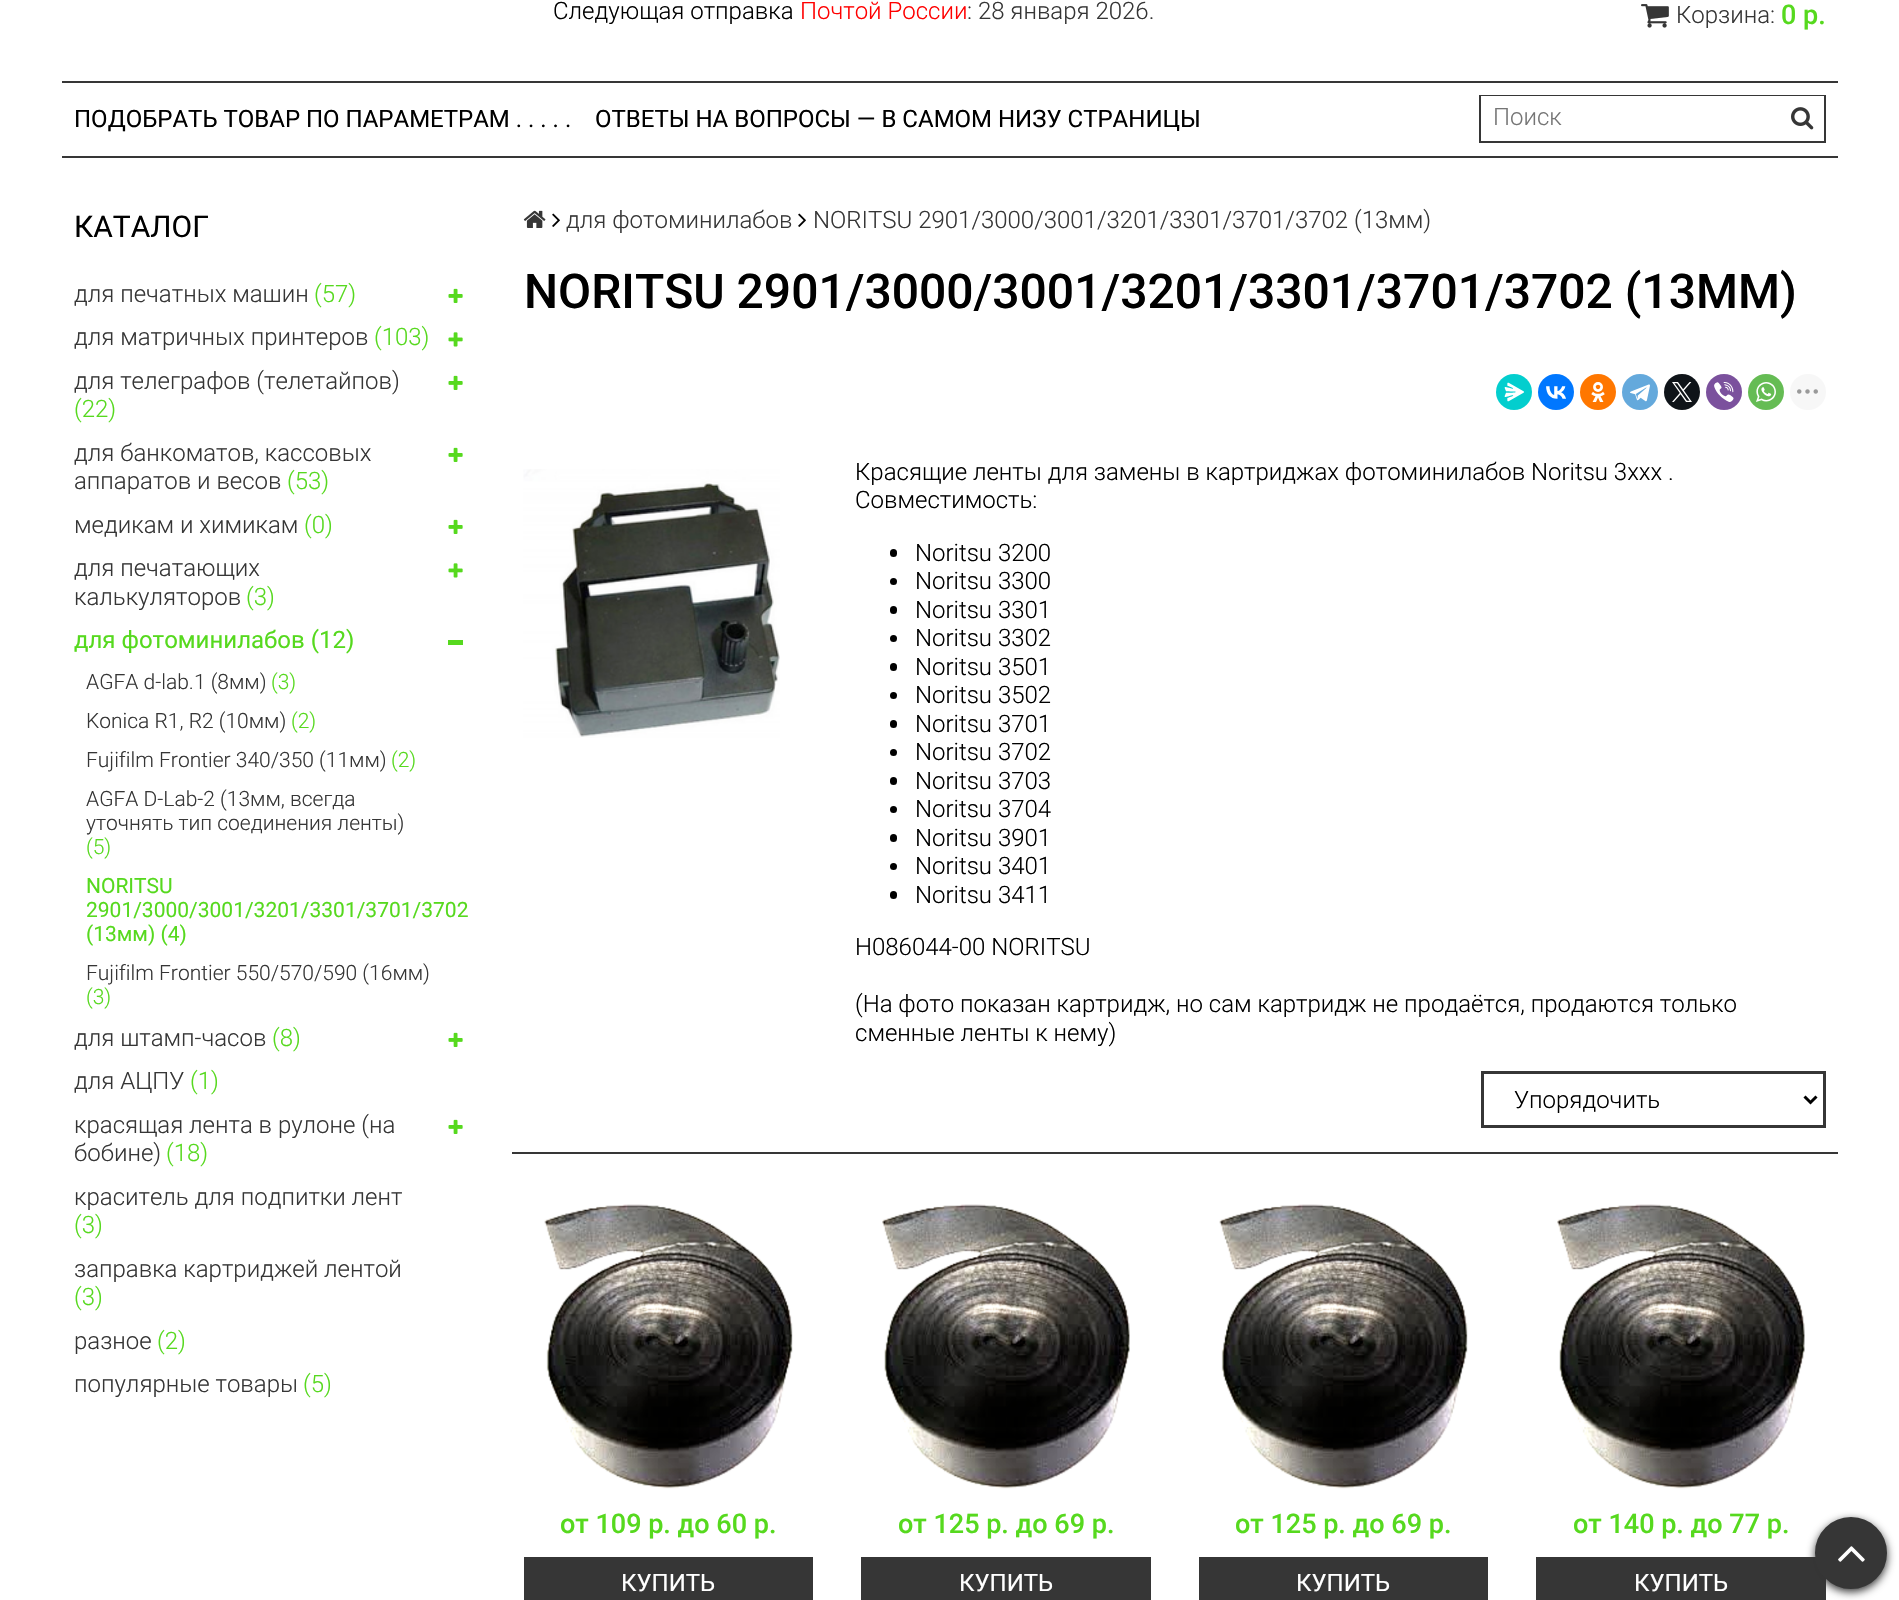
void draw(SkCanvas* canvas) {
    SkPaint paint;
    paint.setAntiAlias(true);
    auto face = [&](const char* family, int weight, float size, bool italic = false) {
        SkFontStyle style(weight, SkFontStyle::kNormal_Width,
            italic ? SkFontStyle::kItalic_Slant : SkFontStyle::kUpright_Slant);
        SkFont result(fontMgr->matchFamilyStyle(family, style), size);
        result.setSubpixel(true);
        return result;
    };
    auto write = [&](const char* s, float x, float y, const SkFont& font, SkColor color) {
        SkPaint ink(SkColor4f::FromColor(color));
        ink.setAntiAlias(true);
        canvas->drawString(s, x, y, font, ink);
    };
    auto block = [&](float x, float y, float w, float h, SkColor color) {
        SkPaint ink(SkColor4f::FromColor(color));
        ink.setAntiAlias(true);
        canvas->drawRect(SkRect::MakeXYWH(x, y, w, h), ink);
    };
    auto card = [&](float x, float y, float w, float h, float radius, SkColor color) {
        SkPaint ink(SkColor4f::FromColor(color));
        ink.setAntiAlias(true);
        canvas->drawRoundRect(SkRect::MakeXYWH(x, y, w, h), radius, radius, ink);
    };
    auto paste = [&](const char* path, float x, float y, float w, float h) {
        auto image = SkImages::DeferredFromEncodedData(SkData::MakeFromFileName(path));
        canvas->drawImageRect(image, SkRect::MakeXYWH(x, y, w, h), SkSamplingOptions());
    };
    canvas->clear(SK_ColorWHITE);
    auto kFont1 = face("Roboto", 300, 24);
    write("Следующая отправка", 553, 19, kFont1, SK_ColorBLACK);
    write("Почтой России", 800, 19, kFont1, SkColorSetRGB(255, 0, 0));
    write(": 28 января 2026.", 967, 19, kFont1, SkColorSetRGB(54, 54, 54));
    paste("pic1.png", 1641, 4, 28, 24);
    write("Корзина:", 1676, 23, kFont1, SkColorSetRGB(54, 54, 54));
    auto kFont2 = face("Roboto", 500, 27);
    write("0 р.", 1781, 24, kFont2, SkColorSetRGB(86, 217, 30));
    block(62, 81, 1776, 2, SkColorSetRGB(54, 54, 54));
    block(62, 156, 1776, 2, SkColorSetRGB(54, 54, 54));
    auto kFont3 = face("Roboto", 400, 24);
    write("ПОДОБРАТЬ ТОВАР ПО ПАРАМЕТРАМ . . . . .", 74, 127, kFont3, SK_ColorBLACK);
    write("ОТВЕТЫ НА ВОПРОСЫ — В САМОМ НИЗУ СТРАНИЦЫ", 595, 127, kFont3, SK_ColorBLACK);
    paint.setStyle(SkPaint::kStroke_Style);
    paint.setStrokeWidth(2);
    paint.setColor(SkColorSetRGB(54, 54, 54));
    canvas->drawRect(SkRect::MakeXYWH(1480, 96, 345, 46), paint);
    block(1481, 96, 343, 1, SK_ColorWHITE);
    write("Поиск", 1493, 125, kFont1, SkColorSetRGB(117, 117, 117));
    paste("pic2.png", 1791, 107, 23, 23);
    auto kFont4 = face("Roboto", 400, 30);
    write("КАТАЛОГ", 74, 237, kFont4, SK_ColorBLACK);
    write("для печатных машин", 74, 302, kFont1, SkColorSetRGB(54, 54, 54));
    write("(57)", 314, 302, kFont1, SkColorSetRGB(86, 217, 30));
    paste("pic3.png", 448, 288, 15, 15);
    write("для матричных принтеров", 74, 345, kFont1, SkColorSetRGB(54, 54, 54));
    write("(103)", 374, 345, kFont1, SkColorSetRGB(86, 217, 30));
    paste("pic4.png", 448, 332, 15, 15);
    write("для телеграфов (телетайпов)", 74, 389, kFont1, SkColorSetRGB(54, 54, 54));
    paste("pic3.png", 448, 375, 15, 15);
    write("(22)", 74, 417, kFont1, SkColorSetRGB(86, 217, 30));
    write("для банкоматов, кассовых", 74, 461, kFont1, SkColorSetRGB(54, 54, 54));
    paste("pic3.png", 448, 447, 15, 15);
    write("аппаратов и весов", 74, 489, kFont1, SkColorSetRGB(54, 54, 54));
    write("(53)", 287, 489, kFont1, SkColorSetRGB(86, 217, 30));
    write("медикам и химикам", 74, 533, kFont1, SkColorSetRGB(54, 54, 54));
    write("(0)", 304, 533, kFont1, SkColorSetRGB(86, 217, 30));
    paste("pic3.png", 448, 519, 15, 15);
    write("для печатающих", 74, 576, kFont1, SkColorSetRGB(54, 54, 54));
    paste("pic4.png", 448, 563, 15, 15);
    write("калькуляторов", 74, 605, kFont1, SkColorSetRGB(54, 54, 54));
    write("(3)", 246, 605, kFont1, SkColorSetRGB(86, 217, 30));
    write("для фотоминилабов (12)", 74, 648, kFont3, SkColorSetRGB(86, 217, 30));
    block(448, 640, 15, 5, SkColorSetRGB(86, 217, 30));
    auto kFont5 = face("Roboto", 300, 21);
    write("AGFA d-lab.1 (8мм)", 86, 689, kFont5, SkColorSetRGB(54, 54, 54));
    write("(3)", 271, 689, kFont5, SkColorSetRGB(86, 217, 30));
    write("Konica R1, R2 (10мм)", 86, 728, kFont5, SkColorSetRGB(54, 54, 54));
    write("(2)", 291, 728, kFont5, SkColorSetRGB(86, 217, 30));
    write("Fujifilm Frontier 340/350 (11мм)", 86, 767, kFont5, SkColorSetRGB(54, 54, 54));
    write("(2)", 391, 767, kFont5, SkColorSetRGB(86, 217, 30));
    write("AGFA D-Lab-2 (13мм, всегда", 86, 806, kFont5, SkColorSetRGB(54, 54, 54));
    write("уточнять тип соединения ленты)", 86, 830, kFont5, SkColorSetRGB(54, 54, 54));
    write("(5)", 86, 854, kFont5, SkColorSetRGB(86, 217, 30));
    auto kFont6 = face("Roboto", 400, 21);
    write("NORITSU", 86, 893, kFont6, SkColorSetRGB(86, 217, 30));
    write("2901/3000/3001/3201/3301/3701/3702", 86, 917, kFont6, SkColorSetRGB(86, 217, 30));
    write("(13мм) (4)", 86, 941, kFont6, SkColorSetRGB(86, 217, 30));
    write("Fujifilm Frontier 550/570/590 (16мм)", 86, 980, kFont5, SkColorSetRGB(54, 54, 54));
    write("(3)", 86, 1004, kFont5, SkColorSetRGB(86, 217, 30));
    write("для штамп-часов", 74, 1046, kFont1, SkColorSetRGB(54, 54, 54));
    write("(8)", 272, 1046, kFont1, SkColorSetRGB(86, 217, 30));
    paste("pic3.png", 448, 1032, 15, 15);
    write("для АЦПУ", 74, 1089, kFont1, SkColorSetRGB(54, 54, 54));
    write("(1)", 190, 1089, kFont1, SkColorSetRGB(86, 217, 30));
    write("красящая лента в рулоне (на", 74, 1133, kFont1, SkColorSetRGB(54, 54, 54));
    paste("pic3.png", 448, 1119, 15, 15);
    write("бобине)", 74, 1161, kFont1, SkColorSetRGB(54, 54, 54));
    write("(18)", 166, 1161, kFont1, SkColorSetRGB(86, 217, 30));
    write("краситель для подпитки лент", 74, 1205, kFont1, SkColorSetRGB(54, 54, 54));
    write("(3)", 74, 1233, kFont1, SkColorSetRGB(86, 217, 30));
    write("заправка картриджей лентой", 74, 1277, kFont1, SkColorSetRGB(54, 54, 54));
    write("(3)", 74, 1305, kFont1, SkColorSetRGB(86, 217, 30));
    write("разное", 74, 1349, kFont1, SkColorSetRGB(54, 54, 54));
    write("(2)", 157, 1349, kFont1, SkColorSetRGB(86, 217, 30));
    write("популярные товары", 74, 1392, kFont1, SkColorSetRGB(54, 54, 54));
    write("(5)", 303, 1392, kFont1, SkColorSetRGB(86, 217, 30));
    paste("pic5.png", 523, 210, 23, 18);
    paste("pic6.png", 552, 213, 8, 14);
    write("для фотоминилабов", 566, 228, kFont1, SkColorSetRGB(54, 54, 54));
    paste("pic6.png", 798, 213, 8, 14);
    write("NORITSU 2901/3000/3001/3201/3301/3701/3702 (13мм)", 813, 228, kFont1, SkColorSetRGB(54, 54, 54));
    auto kFont7 = face("Roboto", 500, 48);
    write("NORITSU 2901/3000/3001/3201/3301/3701/3702 (13ММ)", 524, 308, kFont7, SK_ColorBLACK);
    paint.setStyle(SkPaint::kFill_Style);
    paint.setColor(SkColorSetRGB(3, 206, 206));
    canvas->drawCircle(1514, 392, 18, paint);
    paste("pic7.png", 1504, 382, 20, 20);
    paint.setColor(SkColorSetRGB(0, 119, 255));
    canvas->drawCircle(1556, 392, 18, paint);
    paste("pic8.png", 1546, 386, 20, 13);
    paint.setColor(SkColorSetRGB(255, 119, 0));
    canvas->drawCircle(1598, 392, 18, paint);
    paste("pic9.png", 1591, 382, 14, 20);
    paint.setColor(SkColorSetRGB(100, 169, 220));
    canvas->drawCircle(1640, 392, 18, paint);
    paste("pic10.png", 1630, 384, 20, 18);
    paint.setColor(SkColorSetRGB(15, 20, 25));
    canvas->drawCircle(1682, 392, 18, paint);
    paste("pic11.png", 1672, 382, 20, 20);
    paint.setColor(SkColorSetRGB(123, 81, 157));
    canvas->drawCircle(1724, 392, 18, paint);
    paste("pic12.png", 1714, 382, 20, 20);
    paint.setColor(SkColorSetRGB(101, 188, 84));
    canvas->drawCircle(1766, 392, 18, paint);
    paste("pic13.png", 1756, 382, 20, 20);
    paint.setColor(SkColorSetRGB(247, 247, 247));
    canvas->drawCircle(1808, 392, 18, paint);
    paste("pic14.png", 1797, 389, 21, 5);
    paste("pic15.png", 523, 469, 257, 269);
    write("Красящие ленты для замены в картриджах фотоминилабов Noritsu 3xxx .", 855, 480, kFont1, SK_ColorBLACK);
    write("Совместимость:", 855, 508, kFont1, SK_ColorBLACK);
    card(890, 549, 7, 8, 3.5f, SK_ColorBLACK);
    write("Noritsu 3200", 915, 561, kFont1, SK_ColorBLACK);
    paint.setColor(SK_ColorBLACK);
    canvas->drawCircle(893.5f, 581.5f, 3.5f, paint);
    write("Noritsu 3300", 915, 589, kFont1, SK_ColorBLACK);
    card(890, 606, 7, 8, 3.5f, SK_ColorBLACK);
    write("Noritsu 3301", 915, 618, kFont1, SK_ColorBLACK);
    canvas->drawCircle(893.5f, 638.5f, 3.5f, paint);
    write("Noritsu 3302", 915, 646, kFont1, SK_ColorBLACK);
    card(890, 663, 7, 8, 3.5f, SK_ColorBLACK);
    write("Noritsu 3501", 915, 675, kFont1, SK_ColorBLACK);
    canvas->drawCircle(893.5f, 695.5f, 3.5f, paint);
    write("Noritsu 3502", 915, 703, kFont1, SK_ColorBLACK);
    card(890, 720, 7, 8, 3.5f, SK_ColorBLACK);
    write("Noritsu 3701", 915, 732, kFont1, SK_ColorBLACK);
    canvas->drawCircle(893.5f, 752.5f, 3.5f, paint);
    write("Noritsu 3702", 915, 760, kFont1, SK_ColorBLACK);
    card(890, 777, 7, 8, 3.5f, SK_ColorBLACK);
    write("Noritsu 3703", 915, 789, kFont1, SK_ColorBLACK);
    canvas->drawCircle(893.5f, 809.5f, 3.5f, paint);
    write("Noritsu 3704", 915, 817, kFont1, SK_ColorBLACK);
    card(890, 834, 7, 8, 3.5f, SK_ColorBLACK);
    write("Noritsu 3901", 915, 846, kFont1, SK_ColorBLACK);
    canvas->drawCircle(893.5f, 866.5f, 3.5f, paint);
    write("Noritsu 3401", 915, 874, kFont1, SK_ColorBLACK);
    card(890, 891, 7, 8, 3.5f, SK_ColorBLACK);
    write("Noritsu 3411", 915, 903, kFont1, SK_ColorBLACK);
    write("H086044-00 NORITSU", 855, 955, kFont1, SK_ColorBLACK);
    write("(На фото показан картридж, но сам картридж не продаётся, продаются только", 855, 1012, kFont1, SK_ColorBLACK);
    write("сменные ленты к нему)", 855, 1041, kFont1, SK_ColorBLACK);
    block(512, 1152, 1326, 2, SkColorSetRGB(54, 54, 54));
    paint.setStyle(SkPaint::kStroke_Style);
    paint.setStrokeWidth(3);
    paint.setColor(SkColorSetRGB(54, 54, 54));
    canvas->drawRect(SkRect::MakeXYWH(1482.5f, 1072.5f, 342, 54), paint);
    paint.setColor(SK_ColorBLACK);
    canvas->drawPath(SkPathBuilder().moveTo(1804.5f, 1096.5f).lineTo(1810.5f, 1102.5f).lineTo(1816.5f, 1096.5f).detach(), paint);
    write("Упорядочить", 1514, 1108, kFont1, SK_ColorBLACK);
    paste("pic16.png", 544, 1204, 249, 285);
    write("от 109 р. до 60 р.", 560, 1533, kFont2, SkColorSetRGB(86, 217, 30));
    block(524, 1557, 289, 43, SkColorSetRGB(54, 54, 54));
    write("КУПИТЬ", 621, 1591, kFont3, SK_ColorWHITE);
    paste("pic17.png", 882, 1204, 248, 285);
    write("от 125 р. до 69 р.", 898, 1533, kFont2, SkColorSetRGB(86, 217, 30));
    block(861, 1557, 290, 43, SkColorSetRGB(54, 54, 54));
    write("КУПИТЬ", 959, 1591, kFont3, SK_ColorWHITE);
    paste("pic18.png", 1219, 1204, 249, 285);
    write("от 125 р. до 69 р.", 1235, 1533, kFont2, SkColorSetRGB(86, 217, 30));
    block(1199, 1557, 289, 43, SkColorSetRGB(54, 54, 54));
    write("КУПИТЬ", 1296, 1591, kFont3, SK_ColorWHITE);
    paste("pic19.png", 1557, 1204, 248, 285);
    write("от 140 р. до 77 р.", 1573, 1533, kFont2, SkColorSetRGB(86, 217, 30));
    block(1536, 1557, 290, 43, SkColorSetRGB(54, 54, 54));
    write("КУПИТЬ", 1634, 1591, kFont3, SK_ColorWHITE);
    paint.setStyle(SkPaint::kFill_Style);
    paint.setColor(SkColorSetRGB(51, 51, 51));
    paint.setMaskFilter(SkMaskFilter::MakeBlur(kNormal_SkBlurStyle, 4.5f));
    canvas->drawRoundRect(SkRect::MakeXYWH(1815, 1520, 72, 72), 36, 36, paint);
    paint.setMaskFilter(nullptr);
    paint.setColor(SkColorSetRGB(54, 54, 54));
    canvas->drawCircle(1851, 1553, 34.5f, paint);
    paint.setStyle(SkPaint::kStroke_Style);
    canvas->drawCircle(1851, 1553, 34.5f, paint);
    paste("pic20.png", 1838, 1546, 27, 16);
}
